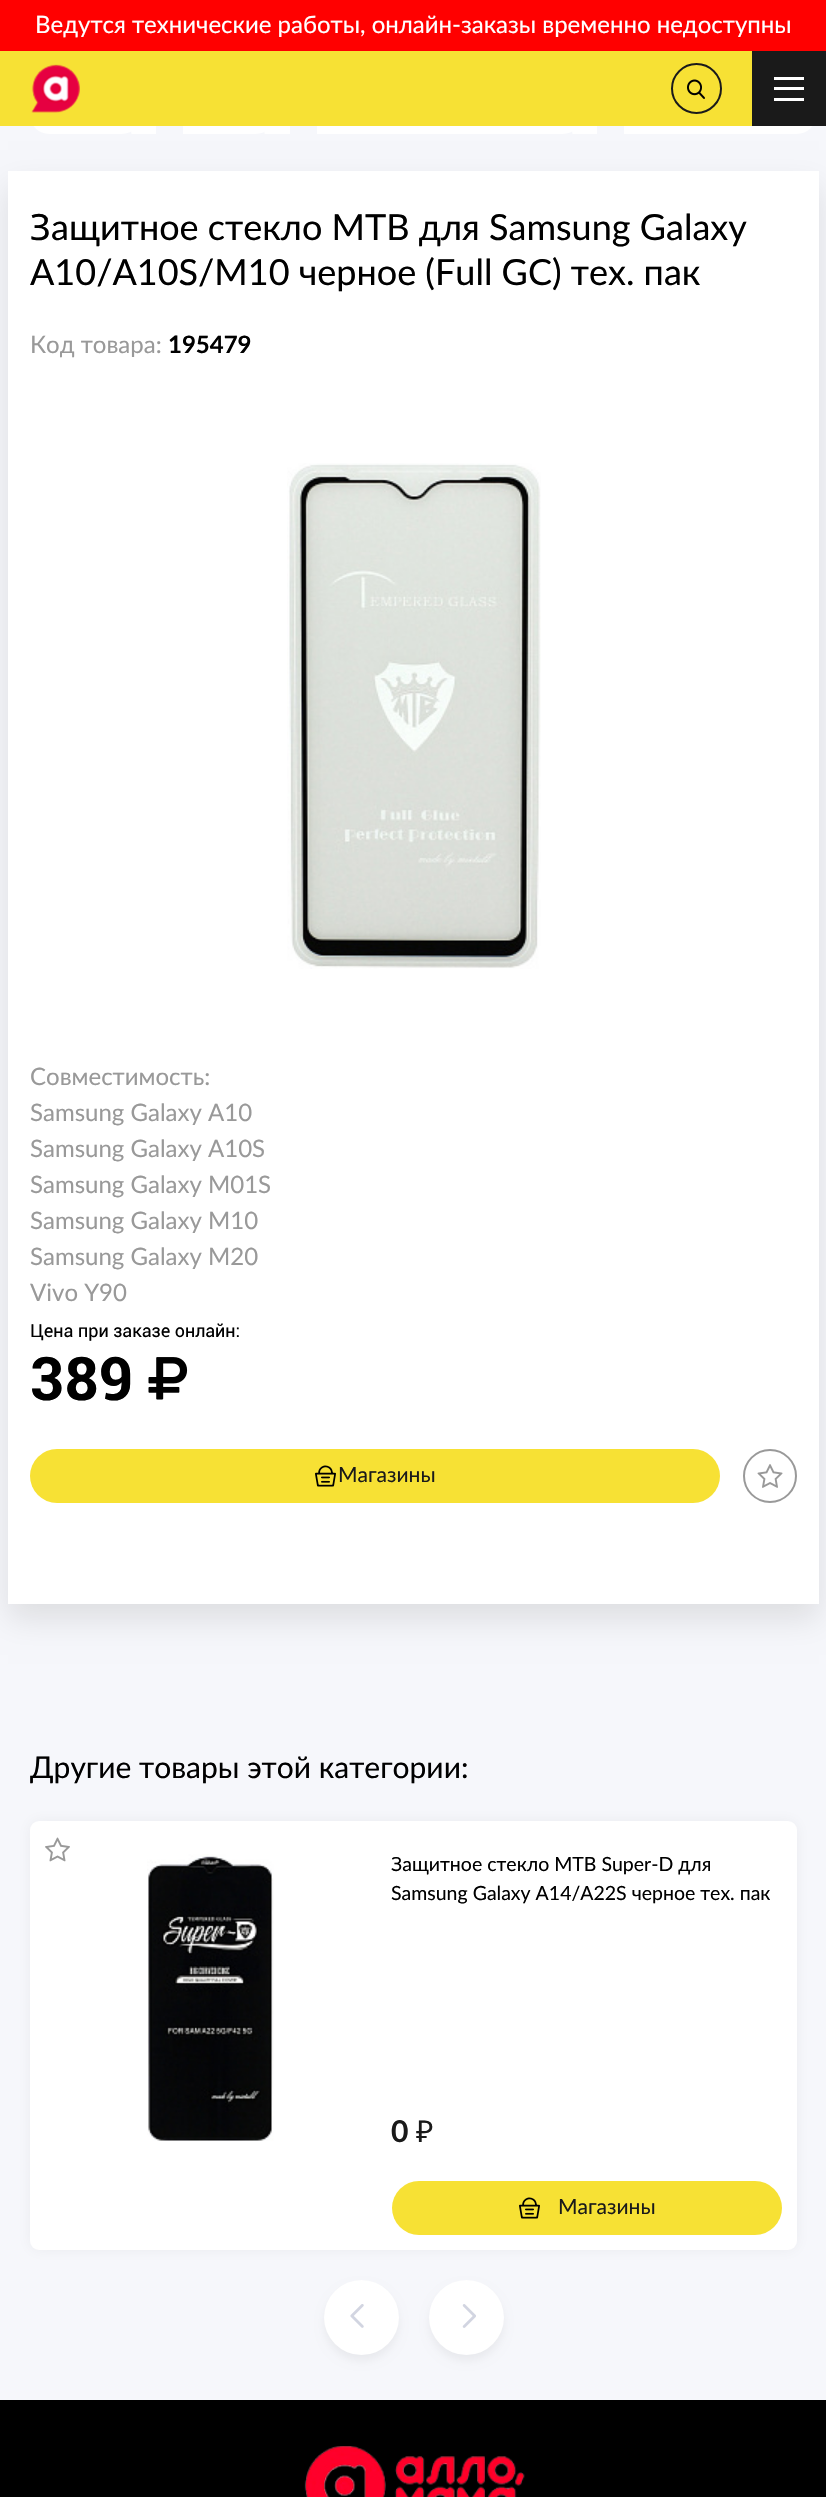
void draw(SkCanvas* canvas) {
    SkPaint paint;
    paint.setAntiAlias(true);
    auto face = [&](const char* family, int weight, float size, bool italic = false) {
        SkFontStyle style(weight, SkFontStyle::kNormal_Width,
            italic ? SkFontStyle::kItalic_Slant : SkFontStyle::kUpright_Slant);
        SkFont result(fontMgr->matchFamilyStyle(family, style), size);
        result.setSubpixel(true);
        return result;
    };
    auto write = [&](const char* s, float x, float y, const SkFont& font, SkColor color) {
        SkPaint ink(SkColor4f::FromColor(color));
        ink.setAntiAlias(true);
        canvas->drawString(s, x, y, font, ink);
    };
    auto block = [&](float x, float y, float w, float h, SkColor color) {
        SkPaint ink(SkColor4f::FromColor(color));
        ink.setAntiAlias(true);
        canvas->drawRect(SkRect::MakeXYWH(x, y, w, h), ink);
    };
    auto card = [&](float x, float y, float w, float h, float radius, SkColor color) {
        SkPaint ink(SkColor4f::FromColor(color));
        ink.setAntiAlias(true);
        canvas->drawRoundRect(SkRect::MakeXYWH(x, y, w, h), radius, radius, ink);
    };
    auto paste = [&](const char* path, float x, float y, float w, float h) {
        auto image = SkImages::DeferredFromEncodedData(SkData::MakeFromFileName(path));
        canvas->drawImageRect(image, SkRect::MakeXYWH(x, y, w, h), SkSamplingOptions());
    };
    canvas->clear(SkColorSetRGB(246, 247, 251));
    card(30, 96, 111, 38, 19, SK_ColorWHITE);
    paint.setColor(SkColorSetARGB(26, 0, 0, 0));
    paint.setMaskFilter(SkMaskFilter::MakeBlur(kNormal_SkBlurStyle, 15));
    canvas->drawRect(SkRect::MakeXYWH(8, 186, 811, 1433), paint);
    paint.setMaskFilter(nullptr);
    canvas->save();
    canvas->clipRect(SkRect::MakeXYWH(0, 98, 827, 36));
    paint.setColor(SK_ColorWHITE);
    canvas->drawPath(SkPathBuilder().moveTo(143.5f, 87).lineTo(156, 87).lineTo(156, 143).lineTo(143.5f, 143).cubicTo(136.5f, 143, 131, 137.5f, 131, 130.5f).lineTo(131, 99.5f).cubicTo(131, 92.5f, 136.5f, 87, 143.5f, 87).close().detach(), paint);
    canvas->restore();
    canvas->drawPath(SkPathBuilder().moveTo(183, 96).lineTo(256, 96).cubicTo(266.5f, 96, 275, 104.5f, 275, 115).cubicTo(275, 125.5f, 266.5f, 134, 256, 134).lineTo(183, 134).close().detach(), paint);
    canvas->save();
    canvas->clipRect(SkRect::MakeXYWH(0, 98, 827, 36));
    canvas->drawPath(SkPathBuilder().moveTo(277, 87).lineTo(290, 87).lineTo(290, 143).lineTo(277, 143).cubicTo(270, 143, 264, 137, 264, 130).lineTo(264, 100).cubicTo(264, 93, 270, 87, 277, 87).close().detach(), paint);
    canvas->restore();
    canvas->drawPath(SkPathBuilder().moveTo(317, 96).lineTo(563, 96).cubicTo(573.5f, 96, 582, 104.5f, 582, 115).cubicTo(582, 125.5f, 573.5f, 134, 563, 134).lineTo(317, 134).close().detach(), paint);
    canvas->save();
    canvas->clipRect(SkRect::MakeXYWH(0, 98, 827, 36));
    canvas->drawPath(SkPathBuilder().moveTo(584.5f, 87).lineTo(597, 87).lineTo(597, 143).lineTo(584.5f, 143).cubicTo(577.5f, 143, 572, 137.5f, 572, 130.5f).lineTo(572, 99.5f).cubicTo(572, 92.5f, 577.5f, 87, 584.5f, 87).close().detach(), paint);
    canvas->restore();
    canvas->drawPath(SkPathBuilder().moveTo(624, 96).lineTo(797, 96).cubicTo(807.5f, 96, 816, 104.5f, 816, 115).cubicTo(816, 125.5f, 807.5f, 134, 797, 134).lineTo(624, 134).close().detach(), paint);
    block(0, 51, 752, 75, SkColorSetRGB(247, 225, 52));
    block(0, 0, 826, 51, SkColorSetRGB(255, 0, 0));
    auto kFont1 = face("Lato", 400, 24);
    write("Ведутся технические работы, онлайн-заказы временно недоступны", 35, 33, kFont1, SK_ColorWHITE);
    paste("pic1.png", 31, 64, 49, 49);
    paint.setStyle(SkPaint::kStroke_Style);
    paint.setStrokeWidth(2);
    paint.setColor(SkColorSetRGB(26, 26, 26));
    canvas->drawCircle(696.5f, 88.5f, 24.5f, paint);
    paste("pic2.png", 687, 79, 18, 20);
    block(752, 51, 74, 75, SkColorSetRGB(26, 26, 26));
    block(774, 77, 30, 3, SK_ColorWHITE);
    block(774, 87, 30, 3, SK_ColorWHITE);
    block(774, 98, 30, 3, SK_ColorWHITE);
    block(8, 171, 811, 1433, SK_ColorWHITE);
    auto kFont2 = face("Noto Sans", 400, 36);
    write("З", 30, 240, kFont2, SK_ColorBLACK);
    auto kFont3 = face("Lato", 400, 36);
    write("ащитное стекло MTB для Samsung Galaxy", 51, 240, kFont3, SK_ColorBLACK);
    write("A10/A10S/M10 черное (Full GC) тех. пак", 30, 285, kFont3, SK_ColorBLACK);
    write("Код товара:", 30, 353, kFont1, SkColorSetRGB(153, 153, 153));
    auto kFont4 = face("Lato", 700, 24);
    write("195479", 168, 353, kFont4, SK_ColorBLACK);
    paste("pic3.png", 287, 463, 254, 506);
    write("Совместимость:", 30, 1085, kFont1, SkColorSetRGB(153, 153, 153));
    write("Samsung Galaxy A10", 30, 1121, kFont1, SkColorSetRGB(153, 153, 153));
    write("Samsung Galaxy A10S", 30, 1157, kFont1, SkColorSetRGB(153, 153, 153));
    write("Samsung Galaxy M01S", 30, 1193, kFont1, SkColorSetRGB(153, 153, 153));
    write("Samsung Galaxy M10", 30, 1229, kFont1, SkColorSetRGB(153, 153, 153));
    write("Samsung Galaxy M20", 30, 1265, kFont1, SkColorSetRGB(153, 153, 153));
    write("Vivo Y90", 30, 1301, kFont1, SkColorSetRGB(153, 153, 153));
    auto kFont5 = face("Roboto", 400, 18);
    write("Цена при заказе онлайн:", 30, 1337, kFont5, SK_ColorBLACK);
    auto kFont6 = face("Roboto", 700, 60);
    write("389", 30, 1400, kFont6, SK_ColorBLACK);
    paste("pic4.png", 148, 1357, 40, 43);
    card(30, 1449, 690, 54, 27, SkColorSetRGB(247, 225, 52));
    paste("pic5.png", 315, 1465, 21, 22);
    auto kFont7 = face("Lato", 400, 21);
    write("Магазины", 338, 1482, kFont7, SkColorSetRGB(26, 26, 26));
    paint.setColor(SkColorSetRGB(153, 153, 153));
    canvas->drawCircle(770, 1476, 26, paint);
    paste("pic6.png", 757, 1464, 26, 24);
    auto kFont8 = face("Lato", 400, 30);
    write("Другие товары этой категории:", 30, 1778, kFont8, SK_ColorBLACK);
    paint.setStyle(SkPaint::kFill_Style);
    paint.setColor(SkColorSetARGB(13, 26, 26, 26));
    paint.setMaskFilter(SkMaskFilter::MakeBlur(kNormal_SkBlurStyle, 7.5f));
    canvas->drawRoundRect(SkRect::MakeXYWH(30, 1821, 767, 429), 9, 9, paint);
    paint.setMaskFilter(nullptr);
    card(30, 1821, 767, 429, 9, SK_ColorWHITE);
    paste("pic7.png", 45, 1837, 25, 25);
    paste("pic8.png", 147, 1854, 127, 287);
    auto kFont9 = face("Lato", 400, 19.5f);
    write("Защитное стекло MTB Super-D для", 391, 1871, kFont9, SK_ColorBLACK);
    write("Samsung Galaxy A14/A22S черное тех. пак", 391, 1900, kFont9, SK_ColorBLACK);
    auto kFont10 = face("Lato", 700, 30);
    write("0", 391, 2142, kFont10, SkColorSetRGB(26, 26, 26));
    auto kFont11 = face("Noto Sans", 400, 30);
    write("₽", 416, 2142, kFont11, SkColorSetRGB(26, 26, 26));
    card(392, 2181, 390, 54, 27, SkColorSetRGB(247, 225, 52));
    paste("pic5.png", 519, 2197, 21, 22);
    write("Магазины", 558, 2214, kFont7, SkColorSetRGB(26, 26, 26));
    paint.setColor(SkColorSetARGB(13, 0, 0, 0));
    paint.setMaskFilter(SkMaskFilter::MakeBlur(kNormal_SkBlurStyle, 4.5f));
    canvas->drawRoundRect(SkRect::MakeXYWH(324, 2286, 75, 75), 37.5f, 37.5f, paint);
    paint.setMaskFilter(nullptr);
    paint.setColor(SK_ColorWHITE);
    canvas->drawCircle(361.5f, 2317.5f, 37.5f, paint);
    paste("pic9.png", 350, 2304, 14, 24);
    paint.setColor(SkColorSetARGB(13, 0, 0, 0));
    paint.setMaskFilter(SkMaskFilter::MakeBlur(kNormal_SkBlurStyle, 4.5f));
    canvas->drawRoundRect(SkRect::MakeXYWH(429, 2286, 75, 75), 37.5f, 37.5f, paint);
    paint.setMaskFilter(nullptr);
    paint.setColor(SK_ColorWHITE);
    canvas->drawCircle(466.5f, 2317.5f, 37.5f, paint);
    paste("pic10.png", 462, 2304, 14, 24);
    block(0, 2400, 826, 97, SK_ColorBLACK);
    paste("pic11.png", 304, 2446, 221, 51);
}
